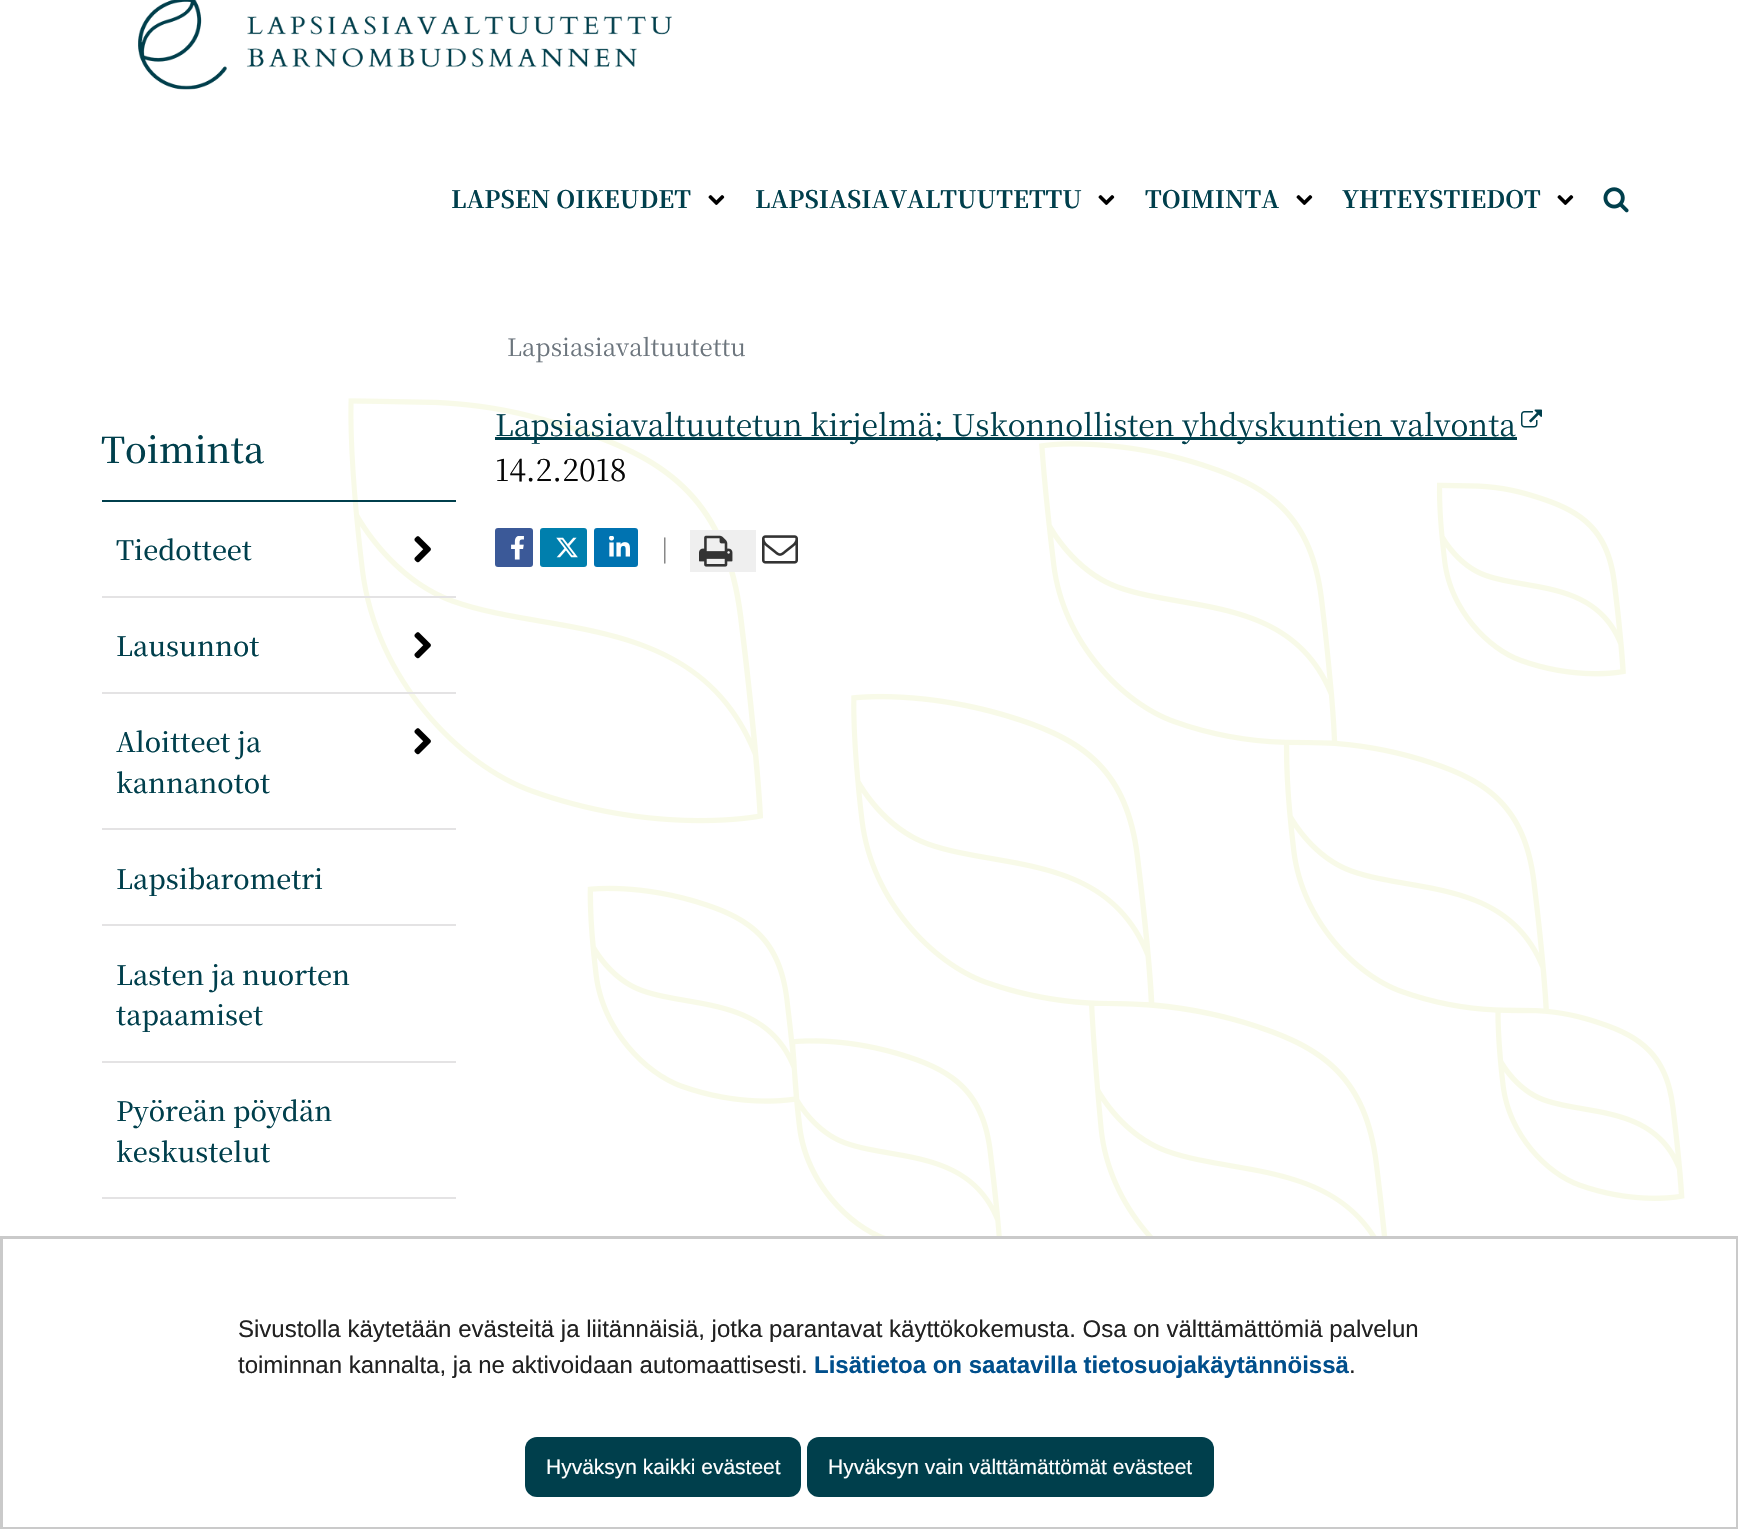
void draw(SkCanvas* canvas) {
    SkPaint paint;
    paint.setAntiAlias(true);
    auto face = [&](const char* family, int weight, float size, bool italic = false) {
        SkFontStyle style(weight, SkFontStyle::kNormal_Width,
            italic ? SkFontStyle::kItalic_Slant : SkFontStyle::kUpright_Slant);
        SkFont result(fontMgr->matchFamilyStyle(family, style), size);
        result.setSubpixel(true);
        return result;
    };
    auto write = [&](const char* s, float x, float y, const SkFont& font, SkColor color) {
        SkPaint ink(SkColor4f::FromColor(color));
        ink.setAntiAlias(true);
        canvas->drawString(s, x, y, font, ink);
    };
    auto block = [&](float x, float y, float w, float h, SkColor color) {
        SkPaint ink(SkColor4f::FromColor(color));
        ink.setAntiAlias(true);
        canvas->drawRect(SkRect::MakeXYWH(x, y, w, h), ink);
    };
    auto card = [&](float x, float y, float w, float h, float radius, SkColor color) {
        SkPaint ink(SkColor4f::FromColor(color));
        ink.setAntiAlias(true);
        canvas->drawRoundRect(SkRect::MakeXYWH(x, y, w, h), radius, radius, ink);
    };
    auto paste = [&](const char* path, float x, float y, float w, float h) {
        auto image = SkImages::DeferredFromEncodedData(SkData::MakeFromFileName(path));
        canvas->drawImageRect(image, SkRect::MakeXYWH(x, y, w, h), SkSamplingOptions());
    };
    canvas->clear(SK_ColorWHITE);
    paste("pic1.png", 138, 0, 534, 90);
    auto kFont1 = face("Noto Serif SC", 700, 24);
    write("LAPSEN OIKEUDET", 451, 208, kFont1, SkColorSetRGB(0, 63, 76));
    paste("pic2.png", 708, 195, 17, 10);
    write("LAPSIASIAVALTUUTETTU", 755, 208, kFont1, SkColorSetRGB(0, 63, 76));
    paste("pic2.png", 1098, 195, 17, 10);
    write("TOIMINTA", 1145, 208, kFont1, SkColorSetRGB(0, 63, 76));
    paste("pic2.png", 1296, 195, 17, 10);
    write("YHTEYSTIEDOT", 1342, 208, kFont1, SkColorSetRGB(0, 63, 76));
    paste("pic2.png", 1557, 195, 17, 10);
    paste("pic3.png", 1603, 187, 26, 26);
    paste("pic4.png", 348, 398, 1337, 838);
    auto kFont2 = face("Noto Serif SC", 400, 24);
    write("Lapsiasiavaltuutettu", 507, 356, kFont2, SkColorSetRGB(108, 117, 125));
    block(102, 500, 354, 2, SkColorSetRGB(0, 63, 76));
    auto kFont3 = face("Noto Serif SC", 500, 36);
    write("Toiminta", 101, 463, kFont3, SkColorSetRGB(0, 63, 76));
    block(102, 596, 354, 2, SkColorSetRGB(228, 227, 228));
    auto kFont4 = face("Noto Serif SC", 500, 27);
    write("Tiedotteet", 116, 560, kFont4, SkColorSetRGB(0, 63, 76));
    paste("pic5.png", 414, 536, 17, 27);
    block(102, 692, 354, 2, SkColorSetRGB(228, 227, 228));
    write("Lausunnot", 116, 656, kFont4, SkColorSetRGB(0, 63, 76));
    paste("pic5.png", 414, 632, 17, 27);
    block(102, 828, 354, 2, SkColorSetRGB(228, 227, 228));
    write("Aloitteet ja", 116, 752, kFont4, SkColorSetRGB(0, 63, 76));
    write("kannanotot", 116, 793, kFont4, SkColorSetRGB(0, 63, 76));
    paste("pic5.png", 414, 728, 17, 27);
    block(102, 924, 354, 2, SkColorSetRGB(228, 227, 228));
    write("Lapsibarometri", 116, 889, kFont4, SkColorSetRGB(0, 63, 76));
    block(102, 1061, 354, 2, SkColorSetRGB(228, 227, 228));
    write("Lasten ja nuorten", 116, 985, kFont4, SkColorSetRGB(0, 63, 76));
    write("tapaamiset", 116, 1025, kFont4, SkColorSetRGB(0, 63, 76));
    block(102, 1197, 354, 2, SkColorSetRGB(228, 227, 228));
    write("Pyöreän pöydän", 116, 1121, kFont4, SkColorSetRGB(0, 63, 76));
    write("keskustelut", 116, 1162, kFont4, SkColorSetRGB(0, 63, 76));
    block(495, 437, 1022, 3, SkColorSetRGB(0, 63, 76));
    auto kFont5 = face("Noto Serif SC", 400, 30);
    write("Lapsiasiavaltuutetun kirjelmä; Uskonnollisten yhdyskuntien valvonta", 495, 436, kFont5, SkColorSetRGB(0, 63, 76));
    paste("pic6.png", 1521, 409, 21, 19);
    write("14.2.2018", 495, 481, kFont5, SkColorSetRGB(6, 6, 6));
    card(495, 528, 38, 39, 3, SkColorSetRGB(59, 89, 152));
    paste("pic7.png", 511, 536, 13, 24);
    card(540, 528, 47, 39, 3, SkColorSetRGB(0, 127, 173));
    paste("pic8.png", 556, 537, 22, 21);
    card(594, 528, 44, 39, 3, SkColorSetRGB(0, 115, 177));
    paste("pic9.png", 609, 536, 21, 21);
    write("|", 661, 557, kFont2, SkColorSetRGB(117, 117, 117));
    block(690, 530, 66, 42, SkColorSetRGB(239, 239, 239));
    paste("pic10.png", 699, 535, 34, 32);
    paste("pic11.png", 762, 535, 36, 29);
    paint.setStyle(SkPaint::kStroke_Style);
    paint.setStrokeWidth(3);
    paint.setColor(SkColorSetRGB(202, 202, 202));
    canvas->drawRect(SkRect::MakeXYWH(1.5f, 1237.5f, 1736, 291), paint);
    auto kFont6 = face("Liberation Sans", 400, 24);
    write("Sivustolla käytetään evästeitä ja liitännäisiä, jotka parantavat käyttökokemusta. Osa on välttämättömiä palvelun", 238, 1337, kFont6, SkColorSetRGB(33, 33, 33));
    write("toiminnan kannalta, ja ne aktivoidaan automaattisesti.", 238, 1373, kFont6, SkColorSetRGB(33, 33, 33));
    auto kFont7 = face("Liberation Sans", 700, 24);
    write("Lisätietoa on saatavilla tietosuojakäytännöissä", 814, 1373, kFont7, SkColorSetRGB(0, 79, 140));
    write(".", 1349, 1373, kFont6, SkColorSetRGB(33, 33, 33));
    card(525, 1437, 276, 60, 12, SkColorSetRGB(0, 63, 76));
    auto kFont8 = face("Liberation Sans", 400, 21);
    write("Hyväksyn kaikki evästeet", 546, 1474, kFont8, SK_ColorWHITE);
    card(807, 1437, 407, 60, 12, SkColorSetRGB(0, 63, 76));
    write("Hyväksyn vain välttämättömät evästeet", 828, 1474, kFont8, SK_ColorWHITE);
}
